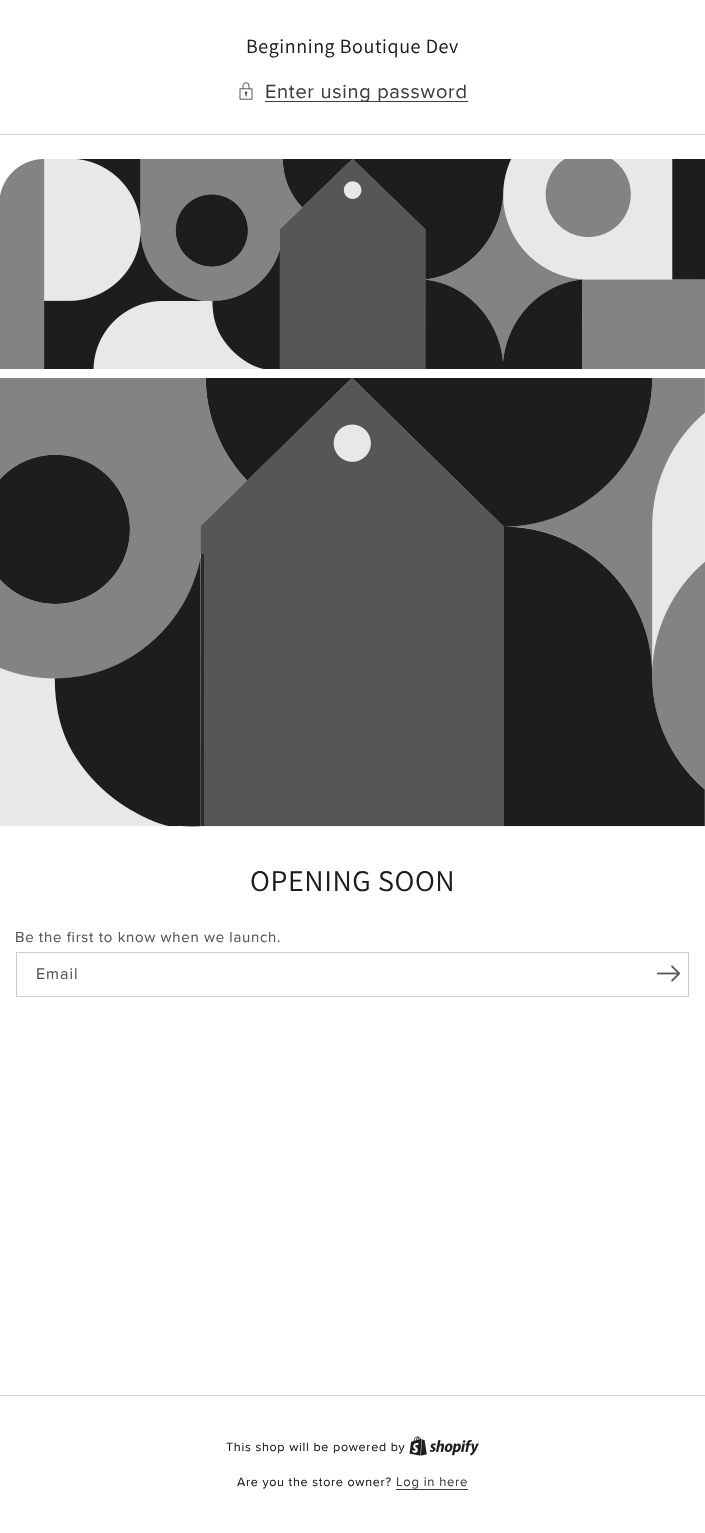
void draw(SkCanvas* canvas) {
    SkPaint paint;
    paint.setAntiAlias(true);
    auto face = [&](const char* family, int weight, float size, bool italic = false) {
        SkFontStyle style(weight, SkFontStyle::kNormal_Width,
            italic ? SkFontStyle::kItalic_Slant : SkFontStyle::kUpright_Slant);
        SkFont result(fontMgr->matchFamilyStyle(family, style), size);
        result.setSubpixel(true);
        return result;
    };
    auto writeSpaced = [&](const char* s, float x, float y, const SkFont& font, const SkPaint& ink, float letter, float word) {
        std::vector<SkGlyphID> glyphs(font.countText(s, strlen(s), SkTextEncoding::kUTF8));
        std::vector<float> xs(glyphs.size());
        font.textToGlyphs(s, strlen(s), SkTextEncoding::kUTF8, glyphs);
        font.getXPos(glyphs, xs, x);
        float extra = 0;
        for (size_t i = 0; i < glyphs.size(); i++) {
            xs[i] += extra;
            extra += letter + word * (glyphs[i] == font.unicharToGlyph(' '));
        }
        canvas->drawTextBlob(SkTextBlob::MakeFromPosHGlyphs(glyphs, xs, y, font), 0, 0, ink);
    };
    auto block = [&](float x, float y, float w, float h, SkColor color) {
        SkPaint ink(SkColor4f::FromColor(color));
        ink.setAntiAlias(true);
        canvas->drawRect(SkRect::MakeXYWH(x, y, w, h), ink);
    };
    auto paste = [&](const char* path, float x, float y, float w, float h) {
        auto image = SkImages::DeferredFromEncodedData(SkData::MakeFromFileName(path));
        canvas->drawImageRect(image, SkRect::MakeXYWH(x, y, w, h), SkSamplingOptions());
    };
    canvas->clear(SK_ColorWHITE);
    auto kFont1 = face("Assistant", 400, 20);
    paint.setColor(SkColorSetRGB(29, 29, 29));
    writeSpaced("Beginning Boutique Dev", 246, 53, kFont1, paint, 0.6f, 0);
    paste("pic1.png", 239, 82, 14, 18);
    block(265, 101, 203, 1, SkColorSetRGB(63, 63, 63));
    auto kFont2 = face("Proxima Nova", 400, 20);
    paint.setColor(SkColorSetRGB(63, 63, 63));
    writeSpaced("Enter using password", 265, 98, kFont2, paint, 0.7f, 0);
    block(0, 134, 705, 1, SkColorSetRGB(210, 210, 210));
    paste("pic2.png", 0, 159, 705, 210);
    paste("pic3.png", 0, 378, 705, 449);
    auto kFont3 = face("Assistant", 400, 30);
    paint.setColor(SkColorSetRGB(29, 29, 29));
    writeSpaced("OPENING SOON", 250, 891, kFont3, paint, 0.6f, 0);
    auto kFont4 = face("Proxima Nova", 400, 15);
    paint.setColor(SkColorSetRGB(86, 86, 86));
    writeSpaced("Be the first to know when we launch.", 15, 942, kFont4, paint, 0.7f, 0);
    paste("pic4.png", 657, 965, 23, 17);
    paint.setStyle(SkPaint::kStroke_Style);
    paint.setStrokeWidth(1);
    paint.setColor(SkColorSetRGB(204, 204, 204));
    canvas->drawRect(SkRect::MakeXYWH(16.5f, 952.5f, 672, 44), paint);
    auto kFont5 = face("Proxima Nova", 400, 16);
    paint.setStyle(SkPaint::kFill_Style);
    paint.setColor(SkColorSetRGB(86, 86, 86));
    writeSpaced("Email", 36, 979, kFont5, paint, 1, 0);
    block(0, 1395, 705, 1, SkColorSetRGB(210, 210, 210));
    auto kFont6 = face("Proxima Nova", 400, 12.5f);
    paint.setColor(SkColorSetRGB(29, 29, 29));
    writeSpaced("This shop will be powered by", 226, 1451, kFont6, paint, 0.7f, 0);
    paste("pic5.png", 409, 1436, 70, 20);
    writeSpaced("Are you the store owner?", 237, 1486, kFont6, paint, 0.7f, 0);
    auto kFont7 = face("Proxima Nova", 400, 13);
    paint.setColor(SkColorSetRGB(63, 63, 63));
    writeSpaced("Log in here", 396, 1486, kFont7, paint, 0.7f, 0);
    block(396, 1489, 72, 1, SkColorSetRGB(63, 63, 63));
}
